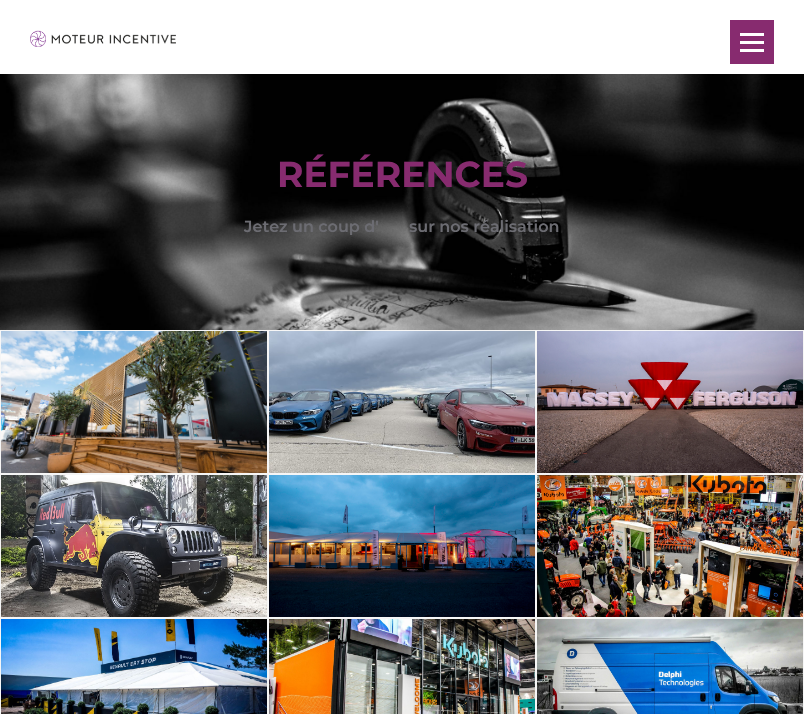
void draw(SkCanvas* canvas) {
    SkPaint paint;
    paint.setAntiAlias(true);
    auto face = [&](const char* family, int weight, float size, bool italic = false) {
        SkFontStyle style(weight, SkFontStyle::kNormal_Width,
            italic ? SkFontStyle::kItalic_Slant : SkFontStyle::kUpright_Slant);
        SkFont result(fontMgr->matchFamilyStyle(family, style), size);
        result.setSubpixel(true);
        return result;
    };
    auto write = [&](const char* s, float x, float y, const SkFont& font, SkColor color) {
        SkPaint ink(SkColor4f::FromColor(color));
        ink.setAntiAlias(true);
        canvas->drawString(s, x, y, font, ink);
    };
    auto block = [&](float x, float y, float w, float h, SkColor color) {
        SkPaint ink(SkColor4f::FromColor(color));
        ink.setAntiAlias(true);
        canvas->drawRect(SkRect::MakeXYWH(x, y, w, h), ink);
    };
    auto paste = [&](const char* path, float x, float y, float w, float h) {
        auto image = SkImages::DeferredFromEncodedData(SkData::MakeFromFileName(path));
        canvas->drawImageRect(image, SkRect::MakeXYWH(x, y, w, h), SkSamplingOptions());
    };
    canvas->clear(SK_ColorWHITE);
    paste("pic1.png", 30, 30, 146, 17);
    block(730, 20, 44, 44, SkColorSetRGB(135, 43, 111));
    block(740, 33, 24, 3, SK_ColorWHITE);
    block(740, 41, 24, 3, SK_ColorWHITE);
    block(740, 49, 24, 3, SK_ColorWHITE);
    paste("pic2.png", 0, 74, 804, 256);
    auto kFont1 = face("Montserrat", 700, 36);
    write("RÉFÉRENCES", 277, 187, kFont1, SkColorSetRGB(135, 43, 111));
    auto kFont2 = face("Montserrat", 600, 16);
    write("Jetez un coup d'", 244, 232, kFont2, SkColorSetRGB(108, 108, 114));
    write("sur nos réalisation", 409, 232, kFont2, SkColorSetRGB(108, 108, 114));
    block(0, 330, 804, 384, SkColorSetRGB(246, 246, 246));
    paste("pic3.png", 1, 331, 266, 142);
    paste("pic4.png", 269, 331, 266, 142);
    paste("pic5.png", 537, 331, 266, 142);
    paste("pic6.png", 1, 475, 266, 142);
    paste("pic7.png", 269, 475, 266, 142);
    paste("pic8.png", 537, 475, 266, 142);
    paste("pic9.png", 1, 619, 266, 95);
    paste("pic10.png", 269, 619, 266, 95);
    paste("pic11.png", 537, 619, 266, 95);
}
